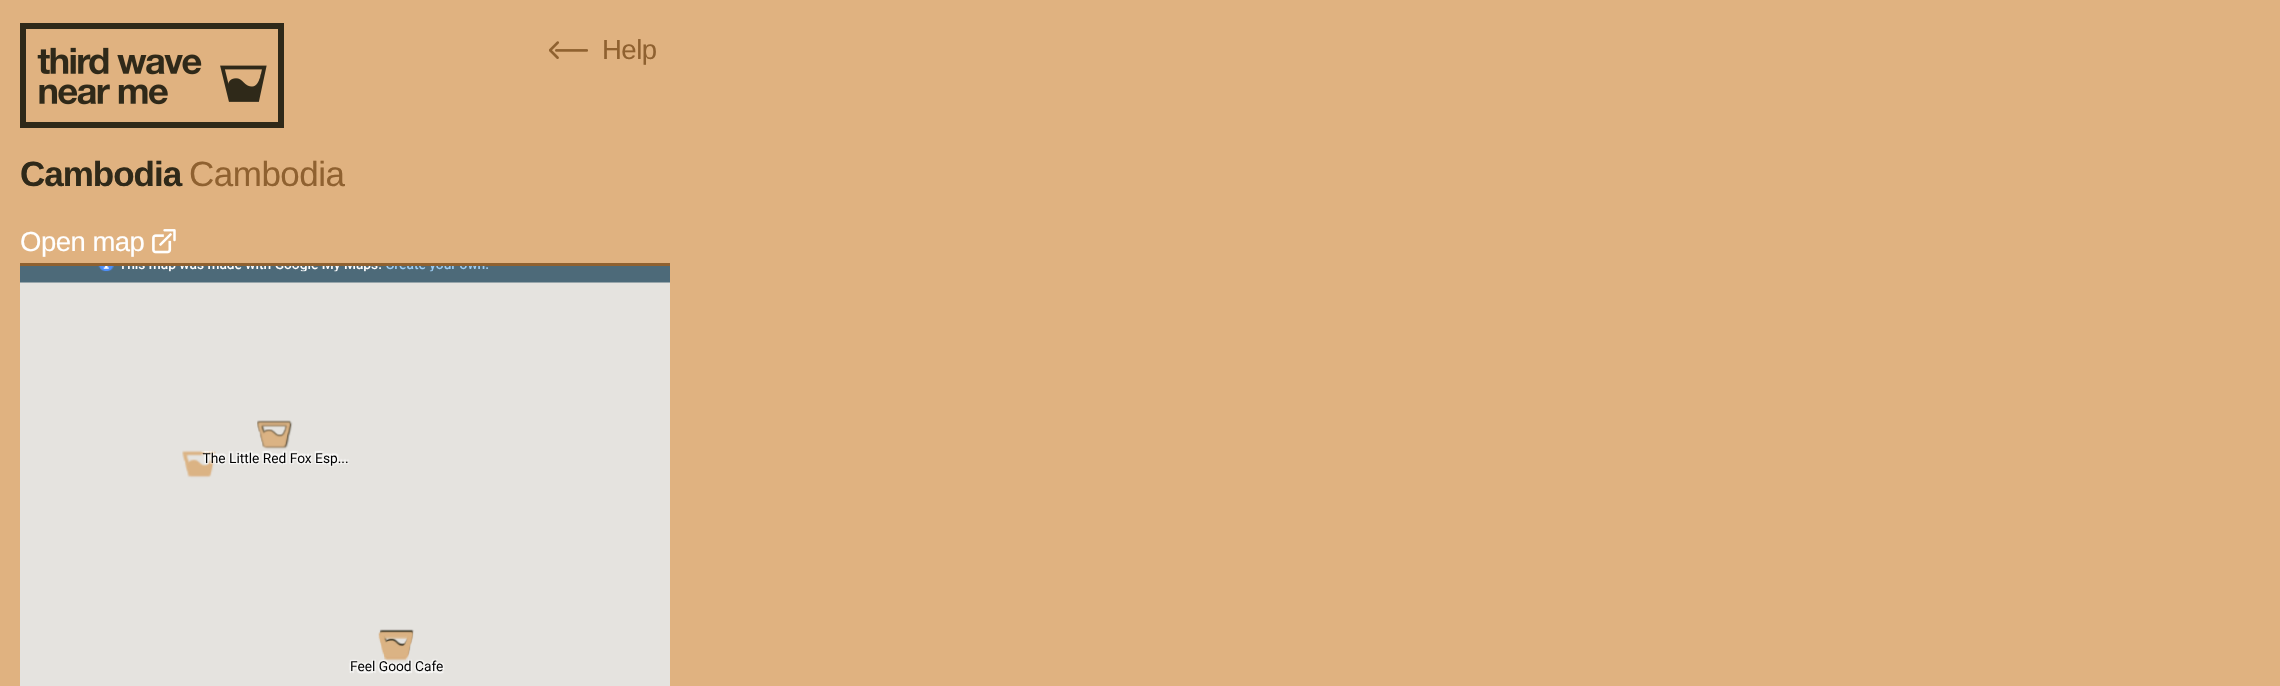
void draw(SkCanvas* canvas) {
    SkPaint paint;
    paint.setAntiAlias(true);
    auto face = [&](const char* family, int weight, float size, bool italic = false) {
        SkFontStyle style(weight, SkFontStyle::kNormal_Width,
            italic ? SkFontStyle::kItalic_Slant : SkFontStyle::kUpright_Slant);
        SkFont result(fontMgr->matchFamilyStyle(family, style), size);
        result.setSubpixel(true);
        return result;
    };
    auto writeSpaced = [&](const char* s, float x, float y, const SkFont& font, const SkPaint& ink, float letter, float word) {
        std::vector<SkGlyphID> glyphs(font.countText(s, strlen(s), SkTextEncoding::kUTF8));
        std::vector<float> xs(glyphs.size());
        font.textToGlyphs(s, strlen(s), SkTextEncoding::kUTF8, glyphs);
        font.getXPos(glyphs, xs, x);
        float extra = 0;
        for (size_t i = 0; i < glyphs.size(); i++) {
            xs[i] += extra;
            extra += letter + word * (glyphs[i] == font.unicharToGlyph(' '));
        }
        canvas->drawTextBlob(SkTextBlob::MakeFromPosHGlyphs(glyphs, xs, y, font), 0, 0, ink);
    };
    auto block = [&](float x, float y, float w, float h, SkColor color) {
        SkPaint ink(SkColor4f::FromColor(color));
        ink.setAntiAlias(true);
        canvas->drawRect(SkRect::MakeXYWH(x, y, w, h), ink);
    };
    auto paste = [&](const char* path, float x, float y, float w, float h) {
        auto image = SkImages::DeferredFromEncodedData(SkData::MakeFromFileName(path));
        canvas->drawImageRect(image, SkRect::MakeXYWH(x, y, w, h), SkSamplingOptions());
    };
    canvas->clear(SkColorSetRGB(224, 178, 128));
    paint.setStyle(SkPaint::kStroke_Style);
    paint.setStrokeWidth(6);
    paint.setColor(SkColorSetRGB(47, 41, 25));
    canvas->drawRect(SkRect::MakeXYWH(23, 26, 258, 99), paint);
    paste("pic1.png", 37, 47, 230, 58);
    paste("pic2.png", 549, 41, 39, 18);
    auto kFont1 = face("Liberation Sans", 400, 27.5f);
    paint.setStyle(SkPaint::kFill_Style);
    paint.setColor(SkColorSetRGB(143, 97, 48));
    writeSpaced("Help", 602, 59, kFont1, paint, -0.5f, 0);
    auto kFont2 = face("Liberation Sans", 700, 35);
    paint.setColor(SkColorSetRGB(47, 41, 25));
    writeSpaced("Cambodia", 20, 186, kFont2, paint, -1, 0);
    auto kFont3 = face("Liberation Sans", 400, 35);
    paint.setColor(SkColorSetRGB(143, 97, 48));
    writeSpaced("Cambodia", 189, 186, kFont3, paint, -0.5f, 0);
    paint.setColor(SK_ColorWHITE);
    writeSpaced("Open map", 20, 251, kFont1, paint, -0.5f, 0);
    paste("pic3.png", 152, 229, 24, 25);
    block(20, 263, 650, 3, SkColorSetRGB(143, 97, 48));
    paste("pic4.png", 20, 266, 650, 420);
}
